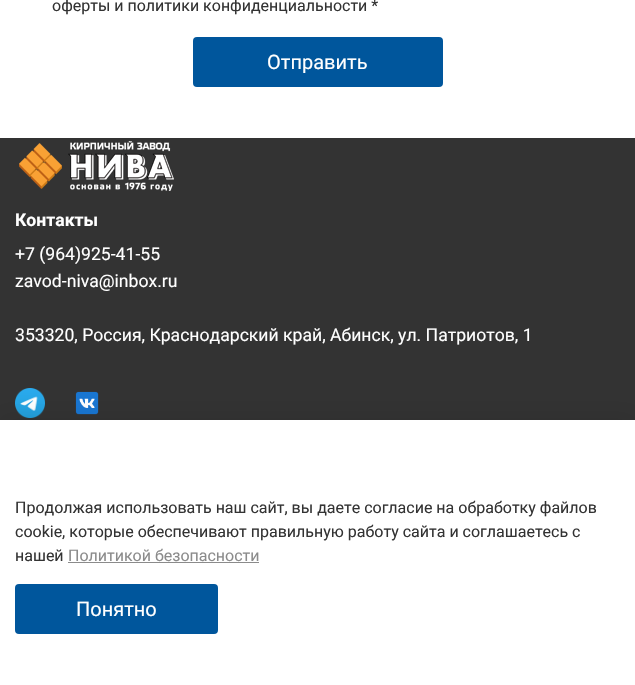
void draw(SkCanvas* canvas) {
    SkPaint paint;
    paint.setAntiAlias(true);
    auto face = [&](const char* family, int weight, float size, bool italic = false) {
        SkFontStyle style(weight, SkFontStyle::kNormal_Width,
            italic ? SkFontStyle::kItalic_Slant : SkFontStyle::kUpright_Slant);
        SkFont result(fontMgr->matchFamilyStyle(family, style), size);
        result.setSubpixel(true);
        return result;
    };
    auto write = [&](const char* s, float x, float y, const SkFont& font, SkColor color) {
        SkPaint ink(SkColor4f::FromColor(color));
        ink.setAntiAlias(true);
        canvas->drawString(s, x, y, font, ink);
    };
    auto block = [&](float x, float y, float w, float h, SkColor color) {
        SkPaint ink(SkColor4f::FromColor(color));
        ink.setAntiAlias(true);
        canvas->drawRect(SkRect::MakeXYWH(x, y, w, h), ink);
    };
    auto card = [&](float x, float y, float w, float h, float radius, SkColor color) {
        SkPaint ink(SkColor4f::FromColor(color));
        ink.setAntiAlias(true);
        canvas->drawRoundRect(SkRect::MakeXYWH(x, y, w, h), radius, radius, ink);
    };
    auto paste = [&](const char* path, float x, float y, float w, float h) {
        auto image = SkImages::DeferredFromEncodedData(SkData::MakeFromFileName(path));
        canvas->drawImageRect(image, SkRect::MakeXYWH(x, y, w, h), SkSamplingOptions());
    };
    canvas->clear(SK_ColorWHITE);
    auto kFont1 = face("Roboto", 400, 16);
    write("оферты и политики конфиденциальности *", 52, 11, kFont1, SkColorSetRGB(51, 51, 51));
    card(193, 37, 250, 50, 4, SkColorSetRGB(0, 86, 156));
    auto kFont2 = face("Roboto", 400, 20);
    write("Отправить", 267, 69, kFont2, SK_ColorWHITE);
    block(0, 138, 635, 282, SkColorSetRGB(51, 51, 51));
    paste("pic1.png", 19, 141, 155, 50);
    auto kFont3 = face("Roboto", 700, 17.6f);
    write("Контакты", 15, 226, kFont3, SK_ColorWHITE);
    auto kFont4 = face("Roboto", 400, 17.6f);
    write("+7 (964)925-41-55", 15, 260, kFont4, SK_ColorWHITE);
    write("zavod-niva@inbox.ru", 15, 287, kFont4, SK_ColorWHITE);
    write("353320, Россия, Краснодарский край, Абинск, ул. Патриотов, 1", 15, 341, kFont4, SK_ColorWHITE);
    paste("pic2.png", 15, 388, 30, 30);
    paste("pic3.png", 75, 391, 24, 24);
    paint.setColor(SkColorSetARGB(23, 0, 0, 0));
    paint.setMaskFilter(SkMaskFilter::MakeBlur(kNormal_SkBlurStyle, 11.5f));
    canvas->drawRect(SkRect::MakeXYWH(-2, 417, 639, 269), paint);
    paint.setMaskFilter(nullptr);
    block(0, 420, 635, 265, SK_ColorWHITE);
    write("Продолжая использовать наш сайт, вы даете согласие на обработку файлов", 15, 513, kFont1, SkColorSetRGB(51, 51, 51));
    write("cookie, которые обеспечивают правильную работу сайта и соглашаетесь с", 15, 537, kFont1, SkColorSetRGB(51, 51, 51));
    write("нашей", 15, 561, kFont1, SkColorSetRGB(51, 51, 51));
    write("Политикой безопасности", 68, 561, kFont1, SkColorSetRGB(139, 139, 139));
    block(68, 562, 191, 1, SkColorSetRGB(139, 139, 139));
    card(15, 584, 203, 50, 4, SkColorSetRGB(0, 86, 156));
    write("Понятно", 76, 616, kFont2, SK_ColorWHITE);
}
